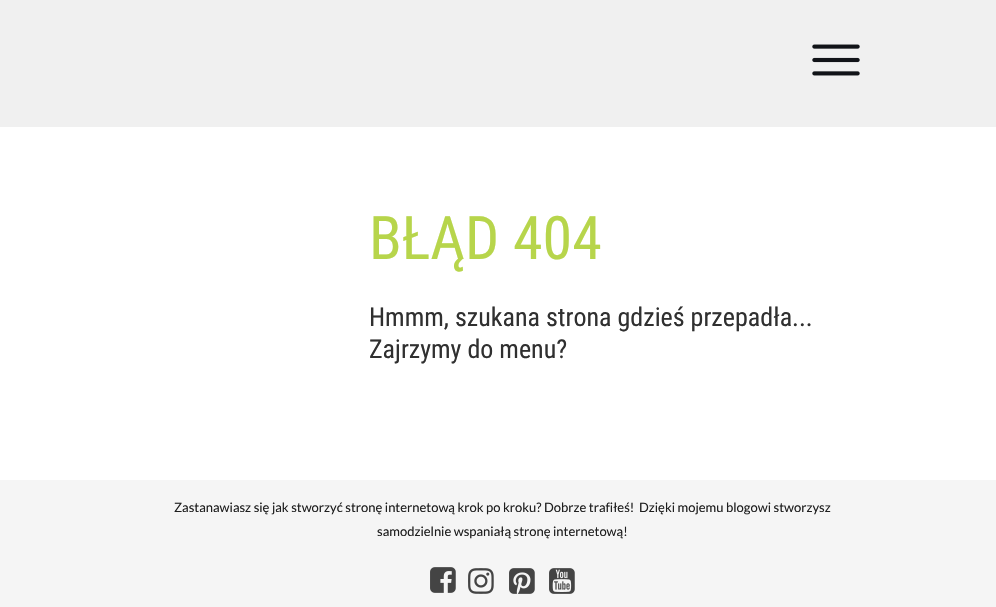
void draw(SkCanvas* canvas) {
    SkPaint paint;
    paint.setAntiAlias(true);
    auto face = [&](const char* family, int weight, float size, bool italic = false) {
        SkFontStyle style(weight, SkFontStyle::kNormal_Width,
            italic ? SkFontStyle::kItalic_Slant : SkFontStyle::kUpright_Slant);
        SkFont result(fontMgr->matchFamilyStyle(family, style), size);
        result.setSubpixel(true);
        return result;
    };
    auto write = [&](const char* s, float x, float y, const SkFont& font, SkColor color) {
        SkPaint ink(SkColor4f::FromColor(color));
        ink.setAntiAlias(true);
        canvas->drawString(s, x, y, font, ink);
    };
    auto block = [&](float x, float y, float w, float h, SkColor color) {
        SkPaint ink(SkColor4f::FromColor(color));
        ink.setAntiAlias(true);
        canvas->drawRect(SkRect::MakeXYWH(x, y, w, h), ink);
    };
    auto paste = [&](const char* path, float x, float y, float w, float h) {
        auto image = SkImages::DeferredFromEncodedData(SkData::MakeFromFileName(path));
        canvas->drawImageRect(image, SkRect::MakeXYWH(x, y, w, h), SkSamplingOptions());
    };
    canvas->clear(SK_ColorWHITE);
    block(0, 0, 996, 127, SkColorSetRGB(240, 240, 240));
    paste("pic1.png", 812, 44, 48, 32);
    auto kFont1 = face("Roboto Condensed", 400, 60);
    write("BŁĄD 404", 369, 259, kFont1, SkColorSetRGB(183, 213, 75));
    auto kFont2 = face("Roboto Condensed", 400, 26);
    write("Hmmm, szukana strona gdzieś przepadła...", 369, 326, kFont2, SkColorSetRGB(48, 48, 48));
    write("Zajrzymy do menu?", 369, 358, kFont2, SkColorSetRGB(48, 48, 48));
    block(0, 480, 996, 127, SkColorSetRGB(245, 245, 245));
    auto kFont3 = face("Lato", 400, 13);
    write("Zastanawiasz się jak stworzyć stronę internetową krok po kroku? Dobrze trafiłeś!", 174, 512, kFont3, SkColorSetRGB(31, 31, 31));
    write("Dzięki mojemu blogowi stworzysz", 639, 512, kFont3, SkColorSetRGB(31, 31, 31));
    write("samodzielnie wspaniałą stronę internetową!", 377, 536, kFont3, SkColorSetRGB(31, 31, 31));
    paste("pic2.png", 430, 567, 26, 26);
    paste("pic3.png", 468, 568, 26, 26);
    paste("pic4.png", 509, 568, 26, 26);
    paste("pic5.png", 549, 568, 26, 26);
}
